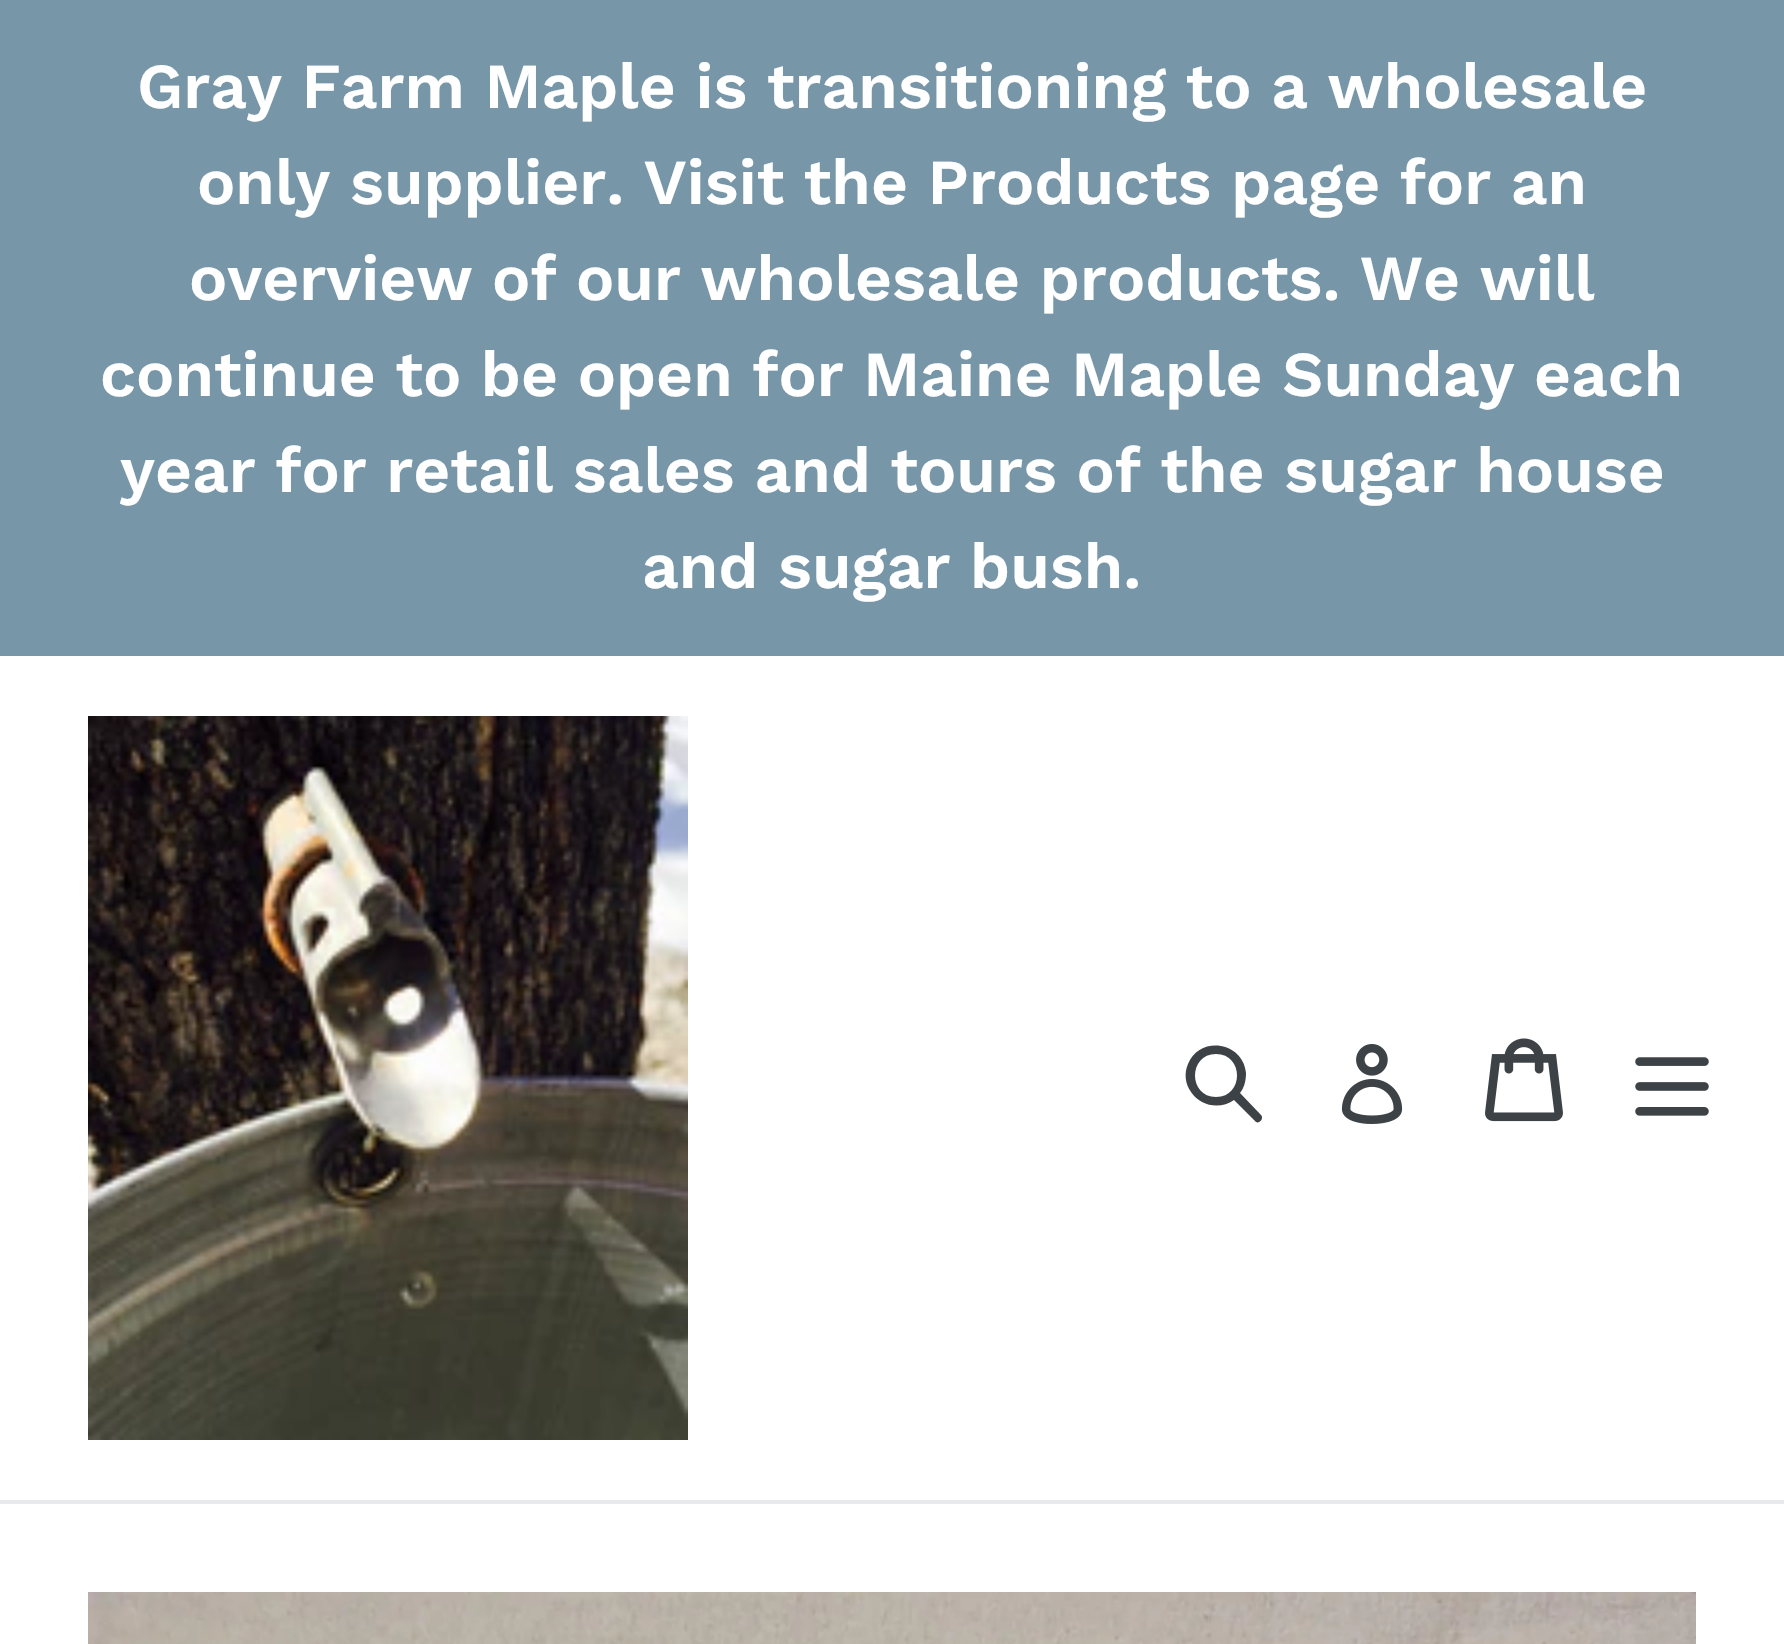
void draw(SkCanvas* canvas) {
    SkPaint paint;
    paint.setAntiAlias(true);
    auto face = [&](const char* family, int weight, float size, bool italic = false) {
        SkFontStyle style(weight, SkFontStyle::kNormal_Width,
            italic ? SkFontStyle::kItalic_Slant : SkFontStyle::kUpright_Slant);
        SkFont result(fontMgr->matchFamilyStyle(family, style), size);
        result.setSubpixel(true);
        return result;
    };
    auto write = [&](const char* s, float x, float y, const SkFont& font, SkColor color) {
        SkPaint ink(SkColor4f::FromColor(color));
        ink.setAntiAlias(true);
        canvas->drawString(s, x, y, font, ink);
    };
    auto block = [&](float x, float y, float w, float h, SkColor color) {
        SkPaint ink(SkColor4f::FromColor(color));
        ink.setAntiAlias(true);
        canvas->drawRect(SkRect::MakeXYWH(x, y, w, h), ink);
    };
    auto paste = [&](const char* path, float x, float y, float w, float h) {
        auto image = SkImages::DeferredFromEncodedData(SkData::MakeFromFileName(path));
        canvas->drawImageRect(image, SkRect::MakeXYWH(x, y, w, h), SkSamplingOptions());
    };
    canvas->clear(SK_ColorWHITE);
    block(0, 0, 1784, 656, SkColorSetRGB(119, 150, 168));
    auto kFont1 = face("Work Sans", 600, 64);
    write("Gray Farm Maple is transitioning to a wholesale", 137, 108, kFont1, SK_ColorWHITE);
    write("only supplier. Visit the Products page for an", 197, 204, kFont1, SK_ColorWHITE);
    write("overview of our wholesale products. We will", 189, 300, kFont1, SK_ColorWHITE);
    write("continue to be open for Maine Maple Sunday each", 100, 396, kFont1, SK_ColorWHITE);
    write("year for retail sales and tours of the sugar house", 120, 492, kFont1, SK_ColorWHITE);
    write("and sugar bush.", 642, 588, kFont1, SK_ColorWHITE);
    block(0, 1500, 1784, 4, SkColorSetRGB(232, 233, 235));
    paste("pic1.png", 88, 716, 600, 724);
    paint.setColor(SkColorSetRGB(61, 66, 70));
    canvas->drawPath(SkPathBuilder().moveTo(1261, 1115).lineTo(1240, 1093).cubicTo(1244, 1088, 1246, 1081, 1246, 1073).cubicTo(1243, 1042, 1200, 1035, 1188, 1064).cubicTo(1184, 1073, 1185, 1084, 1191, 1092).cubicTo(1200, 1106, 1220, 1110, 1234, 1100).lineTo(1256, 1122).cubicTo(1260, 1124, 1264, 1118, 1261, 1115).close().moveTo(1216, 1097).cubicTo(1188, 1097, 1188, 1054, 1216, 1054).cubicTo(1244, 1054, 1244, 1097, 1216, 1097).close().detach(), paint);
    paste("pic2.png", 1341, 1044, 62, 80);
    paste("pic3.png", 1485, 1038, 78, 84);
    paste("pic4.png", 1635, 1057, 74, 59);
    paste("pic5.png", 88, 1592, 1608, 52);
}
